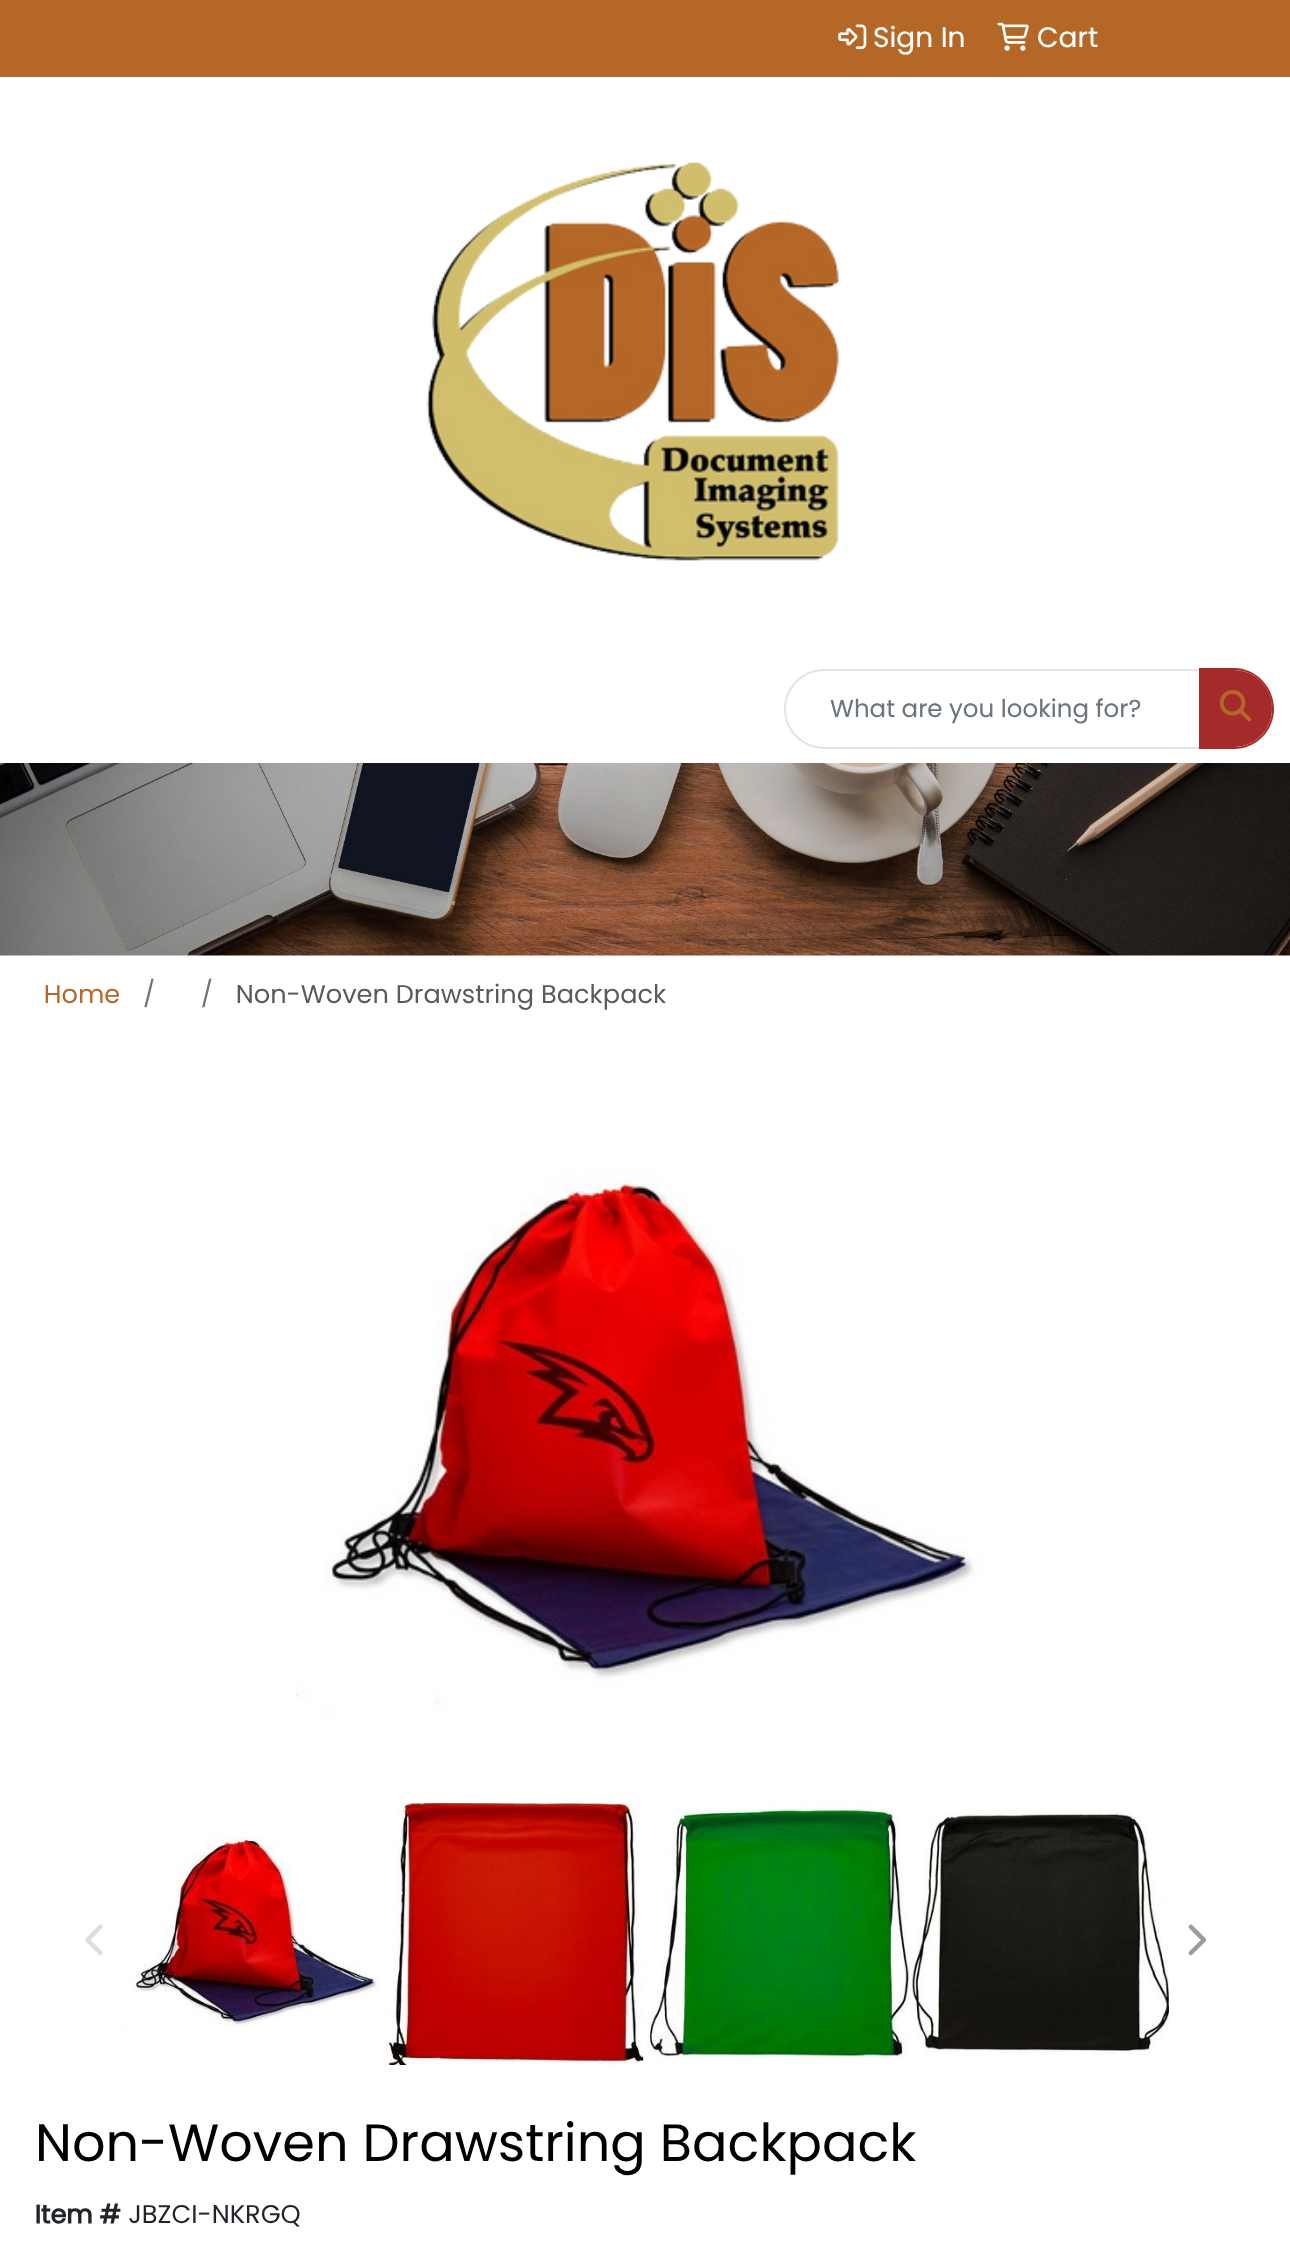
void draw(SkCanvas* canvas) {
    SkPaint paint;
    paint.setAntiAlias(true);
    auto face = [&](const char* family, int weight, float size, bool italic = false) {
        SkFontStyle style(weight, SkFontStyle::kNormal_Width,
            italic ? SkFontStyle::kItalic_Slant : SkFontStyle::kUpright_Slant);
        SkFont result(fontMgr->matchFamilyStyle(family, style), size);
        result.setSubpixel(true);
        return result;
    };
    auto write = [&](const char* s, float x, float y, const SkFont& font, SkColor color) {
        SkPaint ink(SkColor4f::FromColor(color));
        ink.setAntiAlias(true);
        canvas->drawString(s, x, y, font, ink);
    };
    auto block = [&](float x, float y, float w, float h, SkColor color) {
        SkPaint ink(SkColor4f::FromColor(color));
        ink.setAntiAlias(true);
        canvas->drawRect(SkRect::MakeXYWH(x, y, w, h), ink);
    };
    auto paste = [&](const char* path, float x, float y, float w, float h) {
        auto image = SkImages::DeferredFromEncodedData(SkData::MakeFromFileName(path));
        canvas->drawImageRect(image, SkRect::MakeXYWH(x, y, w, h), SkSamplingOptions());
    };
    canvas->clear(SK_ColorWHITE);
    block(0, 0, 1290, 77, SkColorSetRGB(181, 103, 39));
    paste("pic1.png", 838, 24, 29, 25);
    auto kFont1 = face("Poppins", 400, 28);
    write("Sign In", 873, 47, kFont1, SK_ColorWHITE);
    paste("pic2.png", 997, 22, 32, 29);
    write("Cart", 1037, 47, kFont1, SK_ColorWHITE);
    paste("pic3.png", 426, 161, 413, 400);
    paint.setStyle(SkPaint::kStroke_Style);
    paint.setStrokeWidth(2);
    paint.setColor(SkColorSetRGB(228, 228, 228));
    canvas->drawPath(SkPathBuilder().moveTo(824, 670).lineTo(1200, 670).lineTo(1200, 748).lineTo(824, 748).cubicTo(802.5f, 748, 785, 730.5f, 785, 709).cubicTo(785, 687.5f, 802.5f, 670, 824, 670).close().detach(), paint);
    auto kFont2 = face("Poppins", 400, 24.5f);
    write("What are you looking for?", 830, 717, kFont2, SkColorSetRGB(108, 117, 125));
    paint.setStyle(SkPaint::kFill_Style);
    paint.setColor(SkColorSetRGB(165, 42, 42));
    canvas->drawPath(SkPathBuilder().moveTo(1199, 670).lineTo(1233.5f, 670).cubicTo(1255, 670, 1272, 687, 1272, 708.5f).cubicTo(1272, 730, 1255, 747, 1233.5f, 747).lineTo(1199, 747).close().detach(), paint);
    canvas->drawPath(SkPathBuilder(SkPathFillType::kEvenOdd).moveTo(1199, 668).lineTo(1234, 668).cubicTo(1256, 668, 1274, 687, 1274, 709).cubicTo(1274, 731, 1256, 749, 1234, 749).lineTo(1199, 749).close().moveTo(1199, 670).lineTo(1234, 670).cubicTo(1255, 670, 1272, 687, 1272, 709).cubicTo(1272, 730, 1255, 747, 1234, 747).lineTo(1199, 747).close().detach(), paint);
    paste("pic4.png", 1219, 690, 33, 32);
    paste("pic5.png", 0, 763, 1290, 193);
    paste("pic6.png", 36, 978, 1170, 1249);
}
